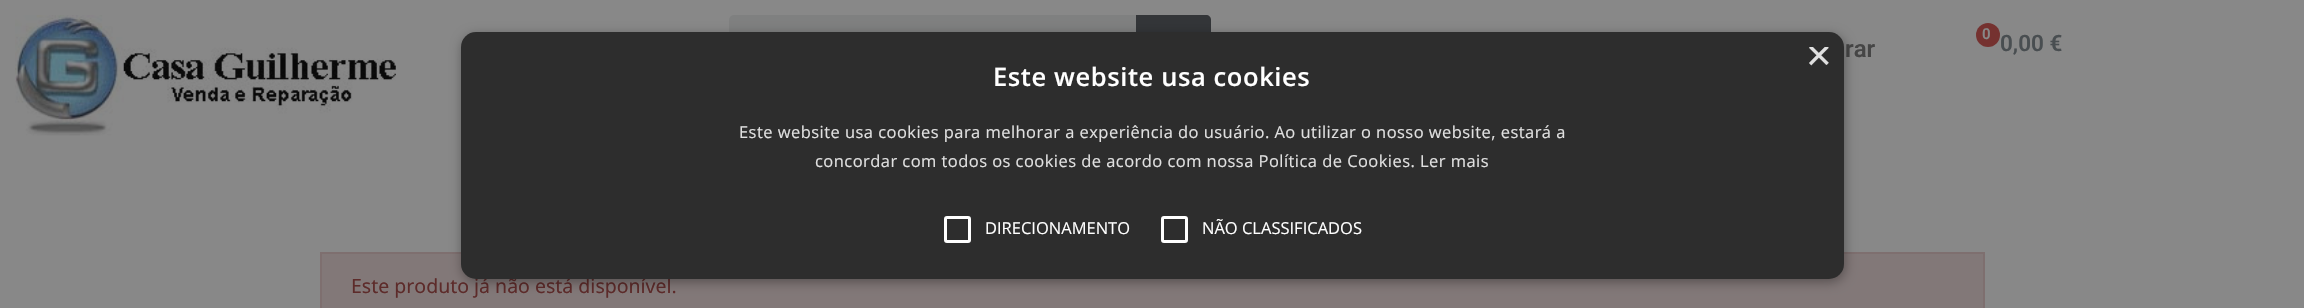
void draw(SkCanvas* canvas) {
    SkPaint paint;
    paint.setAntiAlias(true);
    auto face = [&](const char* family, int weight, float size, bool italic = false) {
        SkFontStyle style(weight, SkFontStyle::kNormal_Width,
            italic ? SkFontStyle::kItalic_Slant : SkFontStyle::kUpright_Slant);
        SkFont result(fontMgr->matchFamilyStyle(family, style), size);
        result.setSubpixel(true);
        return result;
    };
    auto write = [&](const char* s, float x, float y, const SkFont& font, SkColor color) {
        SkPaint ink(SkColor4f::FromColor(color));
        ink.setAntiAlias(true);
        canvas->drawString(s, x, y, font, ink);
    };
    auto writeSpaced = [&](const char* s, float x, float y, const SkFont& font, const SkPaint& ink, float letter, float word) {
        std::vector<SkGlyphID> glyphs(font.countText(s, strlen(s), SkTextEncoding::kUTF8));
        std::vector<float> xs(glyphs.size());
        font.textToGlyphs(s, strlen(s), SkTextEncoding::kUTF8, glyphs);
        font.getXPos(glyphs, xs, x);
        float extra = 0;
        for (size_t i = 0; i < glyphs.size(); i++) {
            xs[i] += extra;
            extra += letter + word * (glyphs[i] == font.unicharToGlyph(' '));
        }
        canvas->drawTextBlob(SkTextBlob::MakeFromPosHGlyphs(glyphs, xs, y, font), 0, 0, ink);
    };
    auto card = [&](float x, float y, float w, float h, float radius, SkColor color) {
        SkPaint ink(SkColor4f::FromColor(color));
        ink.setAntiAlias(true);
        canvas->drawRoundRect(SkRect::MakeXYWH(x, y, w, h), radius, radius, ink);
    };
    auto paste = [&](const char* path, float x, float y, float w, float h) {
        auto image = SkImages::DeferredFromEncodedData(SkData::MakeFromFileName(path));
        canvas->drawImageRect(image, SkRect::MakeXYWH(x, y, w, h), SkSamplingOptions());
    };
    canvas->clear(SkColorSetRGB(136, 136, 136));
    paste("pic1.png", 15, 15, 381, 121);
    card(729, 15, 482, 75, 5, SkColorSetRGB(127, 128, 128));
    paint.setColor(SkColorSetRGB(51, 53, 56));
    canvas->drawPath(SkPathBuilder().moveTo(1136, 15).lineTo(1206, 15).cubicTo(1209, 15, 1211, 17, 1211, 20).lineTo(1211, 85).cubicTo(1211, 88, 1209, 90, 1206, 90).lineTo(1136, 90).close().detach(), paint);
    auto kFont1 = face("Roboto", 600, 24);
    write("rar", 1845, 57, kFont1, SkColorSetRGB(70, 70, 70));
    paint.setColor(SkColorSetRGB(117, 50, 48));
    canvas->drawCircle(1988, 35, 12, paint);
    auto kFont2 = face("Roboto", 600, 15);
    write("0", 1982, 39, kFont2, SkColorSetRGB(136, 136, 136));
    auto kFont3 = face("Roboto", 600, 22.5f);
    write("0,00 €", 2000, 51, kFont3, SkColorSetRGB(73, 78, 81));
    paint.setColor(SkColorSetRGB(130, 120, 120));
    canvas->drawRect(SkRect::MakeXYWH(321, 253, 1663, 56), paint);
    paint.setStyle(SkPaint::kStroke_Style);
    paint.setStrokeWidth(2);
    paint.setColor(SkColorSetRGB(126, 111, 111));
    canvas->drawRect(SkRect::MakeXYWH(321, 253, 1663, 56), paint);
    auto kFont4 = face("Noto Sans", 400, 19.5f);
    write("Este produto já não está disponível.", 351, 293, kFont4, SkColorSetRGB(93, 43, 42));
    paint.setStyle(SkPaint::kFill_Style);
    paint.setColor(SkColorSetARGB(89, 0, 0, 0));
    paint.setMaskFilter(SkMaskFilter::MakeBlur(kNormal_SkBlurStyle, 6));
    canvas->drawRoundRect(SkRect::MakeXYWH(462, 35, 1383, 247), 15, 15, paint);
    paint.setMaskFilter(nullptr);
    card(461, 32, 1383, 247, 15, SkColorSetRGB(45, 45, 45));
    canvas->save();
    canvas->clipRect(SkRect::MakeXYWH(1806, 47, 23, 22));
    auto kFont5 = face("Liberation Sans", 400, 44);
    write("×", 1806, 70, kFont5, SkColorSetRGB(224, 224, 224));
    canvas->restore();
    auto kFont6 = face("Open Sans", 600, 25.5f);
    paint.setColor(SK_ColorWHITE);
    writeSpaced("Este website usa cookies", 993, 86, kFont6, paint, 0.6f, 0);
    auto kFont7 = face("Open Sans", 400, 16.5f);
    paint.setColor(SkColorSetRGB(224, 224, 224));
    writeSpaced("Este website usa cookies para melhorar a experiência do usuário. Ao utilizar o nosso website, estará a", 739, 138, kFont7, paint, 0.45f, 0);
    writeSpaced("concordar com todos os cookies de acordo com nossa Política de Cookies. Ler mais", 815, 167, kFont7, paint, 0.45f, 0);
    paint.setStyle(SkPaint::kStroke_Style);
    paint.setStrokeWidth(3);
    paint.setColor(SK_ColorWHITE);
    canvas->drawRoundRect(SkRect::MakeXYWH(945.5f, 217.5f, 24, 24), 1.5f, 1.5f, paint);
    write("DIRECIONAMENTO", 985, 234, kFont7, SK_ColorWHITE);
    canvas->drawRoundRect(SkRect::MakeXYWH(1162.5f, 217.5f, 24, 24), 1.5f, 1.5f, paint);
    write("NÃO CLASSIFICADOS", 1202, 234, kFont7, SK_ColorWHITE);
}
